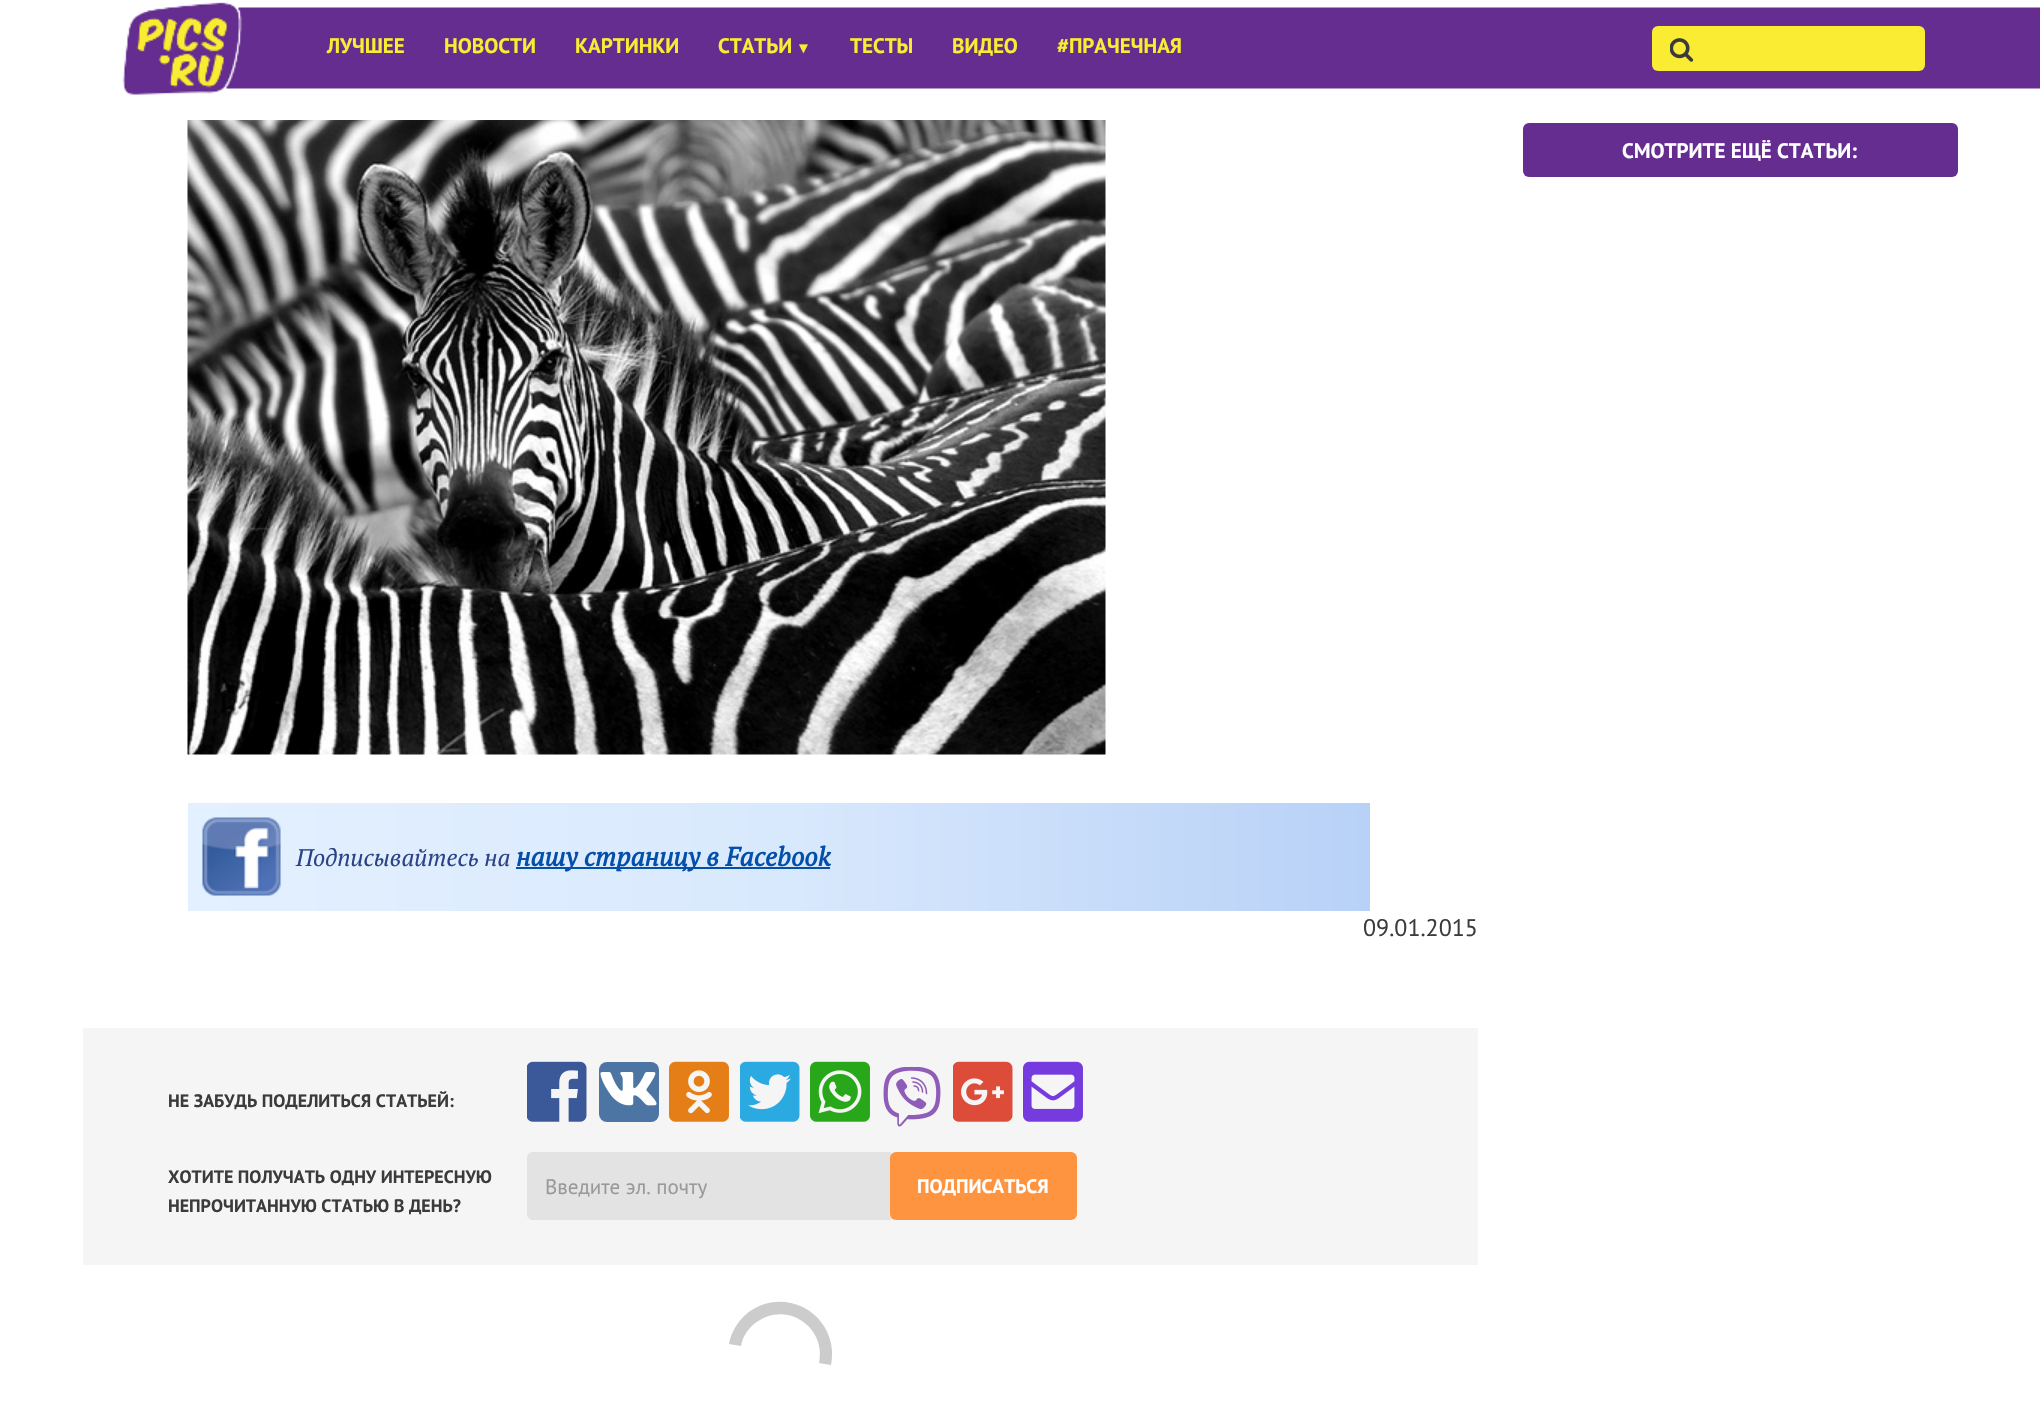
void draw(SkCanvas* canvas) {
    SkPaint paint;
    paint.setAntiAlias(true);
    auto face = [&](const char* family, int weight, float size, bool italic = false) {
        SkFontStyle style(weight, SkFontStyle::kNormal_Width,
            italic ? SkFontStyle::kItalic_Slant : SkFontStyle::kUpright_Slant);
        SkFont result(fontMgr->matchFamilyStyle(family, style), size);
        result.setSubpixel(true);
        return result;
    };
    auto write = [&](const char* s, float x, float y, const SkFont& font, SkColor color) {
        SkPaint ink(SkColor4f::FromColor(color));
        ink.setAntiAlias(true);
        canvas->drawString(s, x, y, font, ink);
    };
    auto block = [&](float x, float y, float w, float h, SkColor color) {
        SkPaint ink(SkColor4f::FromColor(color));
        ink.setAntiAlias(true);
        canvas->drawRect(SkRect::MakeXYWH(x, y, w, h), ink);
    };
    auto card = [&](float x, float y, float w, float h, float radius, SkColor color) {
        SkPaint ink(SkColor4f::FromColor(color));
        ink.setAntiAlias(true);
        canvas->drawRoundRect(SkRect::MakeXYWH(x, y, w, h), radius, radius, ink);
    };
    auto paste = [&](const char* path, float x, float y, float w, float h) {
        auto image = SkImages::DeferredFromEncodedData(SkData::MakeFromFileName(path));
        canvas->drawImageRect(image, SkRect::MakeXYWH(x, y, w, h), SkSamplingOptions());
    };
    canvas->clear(SK_ColorWHITE);
    paste("pic1.png", 122, 2, 1918, 93);
    auto kFont1 = face("PT Sans", 700, 21);
    write("ЛУЧШЕЕ", 327, 53, kFont1, SkColorSetRGB(249, 236, 50));
    write("НОВОСТИ", 444, 53, kFont1, SkColorSetRGB(249, 236, 50));
    write("КАРТИНКИ", 575, 53, kFont1, SkColorSetRGB(249, 236, 50));
    write("СТАТЬИ", 718, 53, kFont1, SkColorSetRGB(249, 236, 50));
    auto kFont2 = face("Liberation Sans", 700, 15);
    write("▼", 796, 53, kFont2, SkColorSetRGB(249, 236, 50));
    write("ТЕСТЫ", 850, 53, kFont1, SkColorSetRGB(249, 236, 50));
    write("ВИДЕО", 952, 53, kFont1, SkColorSetRGB(249, 236, 50));
    write("#ПРАЧЕЧНАЯ", 1057, 53, kFont1, SkColorSetRGB(249, 236, 50));
    card(1652, 26, 273, 45, 6, SkColorSetRGB(249, 236, 50));
    paste("pic2.png", 1670, 38, 24, 24);
    card(1523, 123, 435, 54, 6, SkColorSetRGB(101, 45, 144));
    write("СМОТРИТЕ ЕЩЁ СТАТЬИ:", 1622, 158, kFont1, SK_ColorWHITE);
    paste("pic3.png", 187, 120, 919, 635);
    {
        const SkColor colors[] = {SkColorSetRGB(227, 240, 255), SkColorSetRGB(217, 233, 253), SkColorSetRGB(184, 209, 247)};
        const float stops[] = {0, 0.5f, 1};
        const SkPoint ends[] = {{188, 857}, {1370, 857}};
        paint.setShader(SkGradientShader::MakeLinear(ends, colors, stops, 3, SkTileMode::kClamp));
        paint.setAlpha(255);
    }
    canvas->drawRect(SkRect::MakeXYWH(188, 803, 1182, 108), paint);
    paste("pic4.png", 202, 817, 79, 79);
    auto kFont3 = face("PT Serif", 400, 24, true);
    write("Подписывайтесь на", 296, 866, kFont3, SkColorSetRGB(43, 67, 134));
    block(516, 867, 314, 2, SkColorSetRGB(4, 79, 170));
    auto kFont4 = face("PT Serif", 700, 26.4f, true);
    write("нашу страницу в Facebook", 516, 866, kFont4, SkColorSetRGB(4, 79, 170));
    auto kFont5 = face("PT Sans", 400, 24);
    write("09.01.2015", 1363, 936, kFont5, SkColorSetRGB(59, 59, 59));
    block(83, 1028, 1395, 237, SkColorSetRGB(245, 245, 245));
    auto kFont6 = face("PT Sans", 700, 18);
    write("НЕ ЗАБУДЬ ПОДЕЛИТЬСЯ СТАТЬЕЙ:", 168, 1107, kFont6, SkColorSetRGB(59, 59, 59));
    paste("pic5.png", 527, 1061, 60, 61);
    card(599, 1062, 60, 60, 8, SkColorSetRGB(77, 117, 163));
    paste("pic6.png", 600, 1072, 57, 34);
    paste("pic7.png", 669, 1061, 60, 61);
    paste("pic8.png", 740, 1061, 60, 61);
    paste("pic9.png", 810, 1061, 60, 61);
    paste("pic10.png", 883, 1067, 58, 60);
    paste("pic11.png", 953, 1061, 60, 61);
    paste("pic12.png", 1023, 1061, 60, 61);
    write("ХОТИТЕ ПОЛУЧАТЬ ОДНУ ИНТЕРЕСНУЮ", 168, 1183, kFont6, SkColorSetRGB(59, 59, 59));
    write("НЕПРОЧИТАННУЮ СТАТЬЮ В ДЕНЬ?", 168, 1212, kFont6, SkColorSetRGB(59, 59, 59));
    paint.setShader(nullptr);
    paint.setColor(SkColorSetRGB(227, 227, 227));
    canvas->drawPath(SkPathBuilder().moveTo(533, 1152).lineTo(891, 1152).lineTo(891, 1220).lineTo(533, 1220).cubicTo(529.5f, 1220, 527, 1217.5f, 527, 1214).lineTo(527, 1158).cubicTo(527, 1154.5f, 529.5f, 1152, 533, 1152).close().detach(), paint);
    auto kFont7 = face("PT Sans", 400, 21);
    write("Введите эл. почту", 545, 1194, kFont7, SkColorSetRGB(153, 153, 153));
    card(890, 1152, 187, 68, 6, SkColorSetRGB(254, 148, 64));
    auto kFont8 = face("PT Sans", 700, 19.5f);
    write("ПОДПИСАТЬСЯ", 917, 1193, kFont8, SK_ColorWHITE);
    paint.setColor(SkColorSetRGB(204, 204, 204));
    canvas->drawPath(SkPathBuilder().moveTo(831, 1365).cubicTo(837, 1337, 819, 1309, 791, 1303).cubicTo(762, 1297, 735, 1315, 729, 1344).lineTo(741, 1346).cubicTo(745, 1325, 767, 1311, 788, 1315).cubicTo(810, 1320, 824, 1341, 819, 1363).close().detach(), paint);
}
